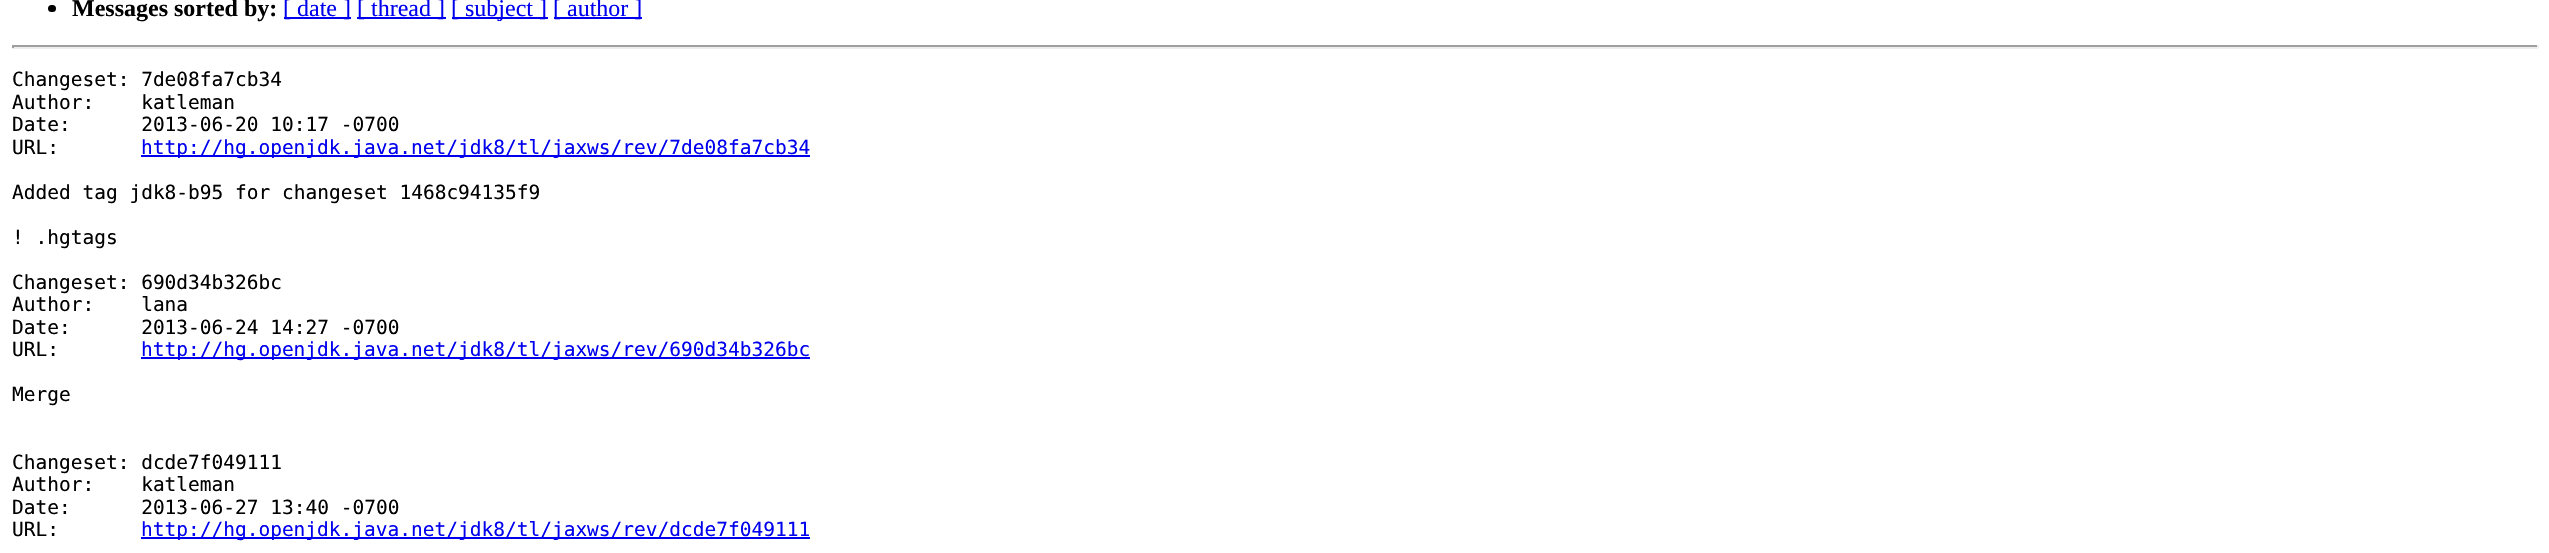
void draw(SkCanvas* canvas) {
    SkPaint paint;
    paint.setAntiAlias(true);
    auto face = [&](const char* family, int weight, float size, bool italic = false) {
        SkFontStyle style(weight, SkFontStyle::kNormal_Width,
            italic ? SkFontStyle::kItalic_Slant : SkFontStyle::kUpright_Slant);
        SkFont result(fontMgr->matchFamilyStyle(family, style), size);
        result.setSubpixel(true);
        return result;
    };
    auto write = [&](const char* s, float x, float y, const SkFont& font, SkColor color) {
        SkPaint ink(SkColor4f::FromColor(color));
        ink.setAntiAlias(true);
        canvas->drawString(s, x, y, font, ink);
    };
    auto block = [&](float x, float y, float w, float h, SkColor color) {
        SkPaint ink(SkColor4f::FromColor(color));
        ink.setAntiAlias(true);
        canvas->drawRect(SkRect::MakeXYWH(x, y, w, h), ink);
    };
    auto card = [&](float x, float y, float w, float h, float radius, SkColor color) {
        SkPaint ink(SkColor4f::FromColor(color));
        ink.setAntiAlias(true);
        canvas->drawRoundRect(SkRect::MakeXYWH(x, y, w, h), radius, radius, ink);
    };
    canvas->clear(SK_ColorWHITE);
    card(48, 5, 8, 7, 3.5f, SK_ColorBLACK);
    auto kFont1 = face("Liberation Serif", 700, 24);
    write("Messages sorted by:", 72, 16, kFont1, SK_ColorBLACK);
    block(284, 17, 67, 2, SkColorSetRGB(0, 0, 238));
    auto kFont2 = face("Liberation Serif", 400, 24);
    write("[ date ]", 283, 16, kFont2, SkColorSetRGB(0, 0, 238));
    block(357, 17, 89, 2, SkColorSetRGB(0, 0, 238));
    write("[ thread ]", 357, 16, kFont2, SkColorSetRGB(0, 0, 238));
    block(452, 17, 96, 2, SkColorSetRGB(0, 0, 238));
    write("[ subject ]", 451, 16, kFont2, SkColorSetRGB(0, 0, 238));
    block(554, 17, 88, 2, SkColorSetRGB(0, 0, 238));
    write("[ author ]", 553, 16, kFont2, SkColorSetRGB(0, 0, 238));
    block(12, 45, 2526, 2, SkColorSetRGB(159, 159, 159));
    block(2537, 45, 2, 3, SkColorSetRGB(238, 238, 238));
    block(12, 47, 2526, 2, SkColorSetRGB(238, 238, 238));
    block(12, 45, 2, 3, SkColorSetRGB(159, 159, 159));
    auto kFont3 = face("DejaVu Sans Mono", 400, 19.5f);
    write("Changeset: 7de08fa7cb34", 12, 86, kFont3, SK_ColorBLACK);
    write("Author:    katleman", 12, 109, kFont3, SK_ColorBLACK);
    write("Date:      2013-06-20 10:17 -0700", 12, 131, kFont3, SK_ColorBLACK);
    write("URL:", 12, 154, kFont3, SK_ColorBLACK);
    block(141, 155, 669, 2, SkColorSetRGB(0, 0, 238));
    write("http://hg.openjdk.java.net/jdk8/tl/jaxws/rev/7de08fa7cb34", 141, 154, kFont3, SkColorSetRGB(0, 0, 238));
    write("Added tag jdk8-b95 for changeset 1468c94135f9", 12, 199, kFont3, SK_ColorBLACK);
    write("! .hgtags", 12, 244, kFont3, SK_ColorBLACK);
    write("Changeset: 690d34b326bc", 12, 289, kFont3, SK_ColorBLACK);
    write("Author:    lana", 12, 311, kFont3, SK_ColorBLACK);
    write("Date:      2013-06-24 14:27 -0700", 12, 334, kFont3, SK_ColorBLACK);
    write("URL:", 12, 356, kFont3, SK_ColorBLACK);
    block(141, 357, 669, 2, SkColorSetRGB(0, 0, 238));
    write("http://hg.openjdk.java.net/jdk8/tl/jaxws/rev/690d34b326bc", 141, 356, kFont3, SkColorSetRGB(0, 0, 238));
    write("Merge", 12, 401, kFont3, SK_ColorBLACK);
    write("Changeset: dcde7f049111", 12, 469, kFont3, SK_ColorBLACK);
    write("Author:    katleman", 12, 491, kFont3, SK_ColorBLACK);
    write("Date:      2013-06-27 13:40 -0700", 12, 514, kFont3, SK_ColorBLACK);
    write("URL:", 12, 536, kFont3, SK_ColorBLACK);
    block(141, 537, 669, 2, SkColorSetRGB(0, 0, 238));
    write("http://hg.openjdk.java.net/jdk8/tl/jaxws/rev/dcde7f049111", 141, 536, kFont3, SkColorSetRGB(0, 0, 238));
}
